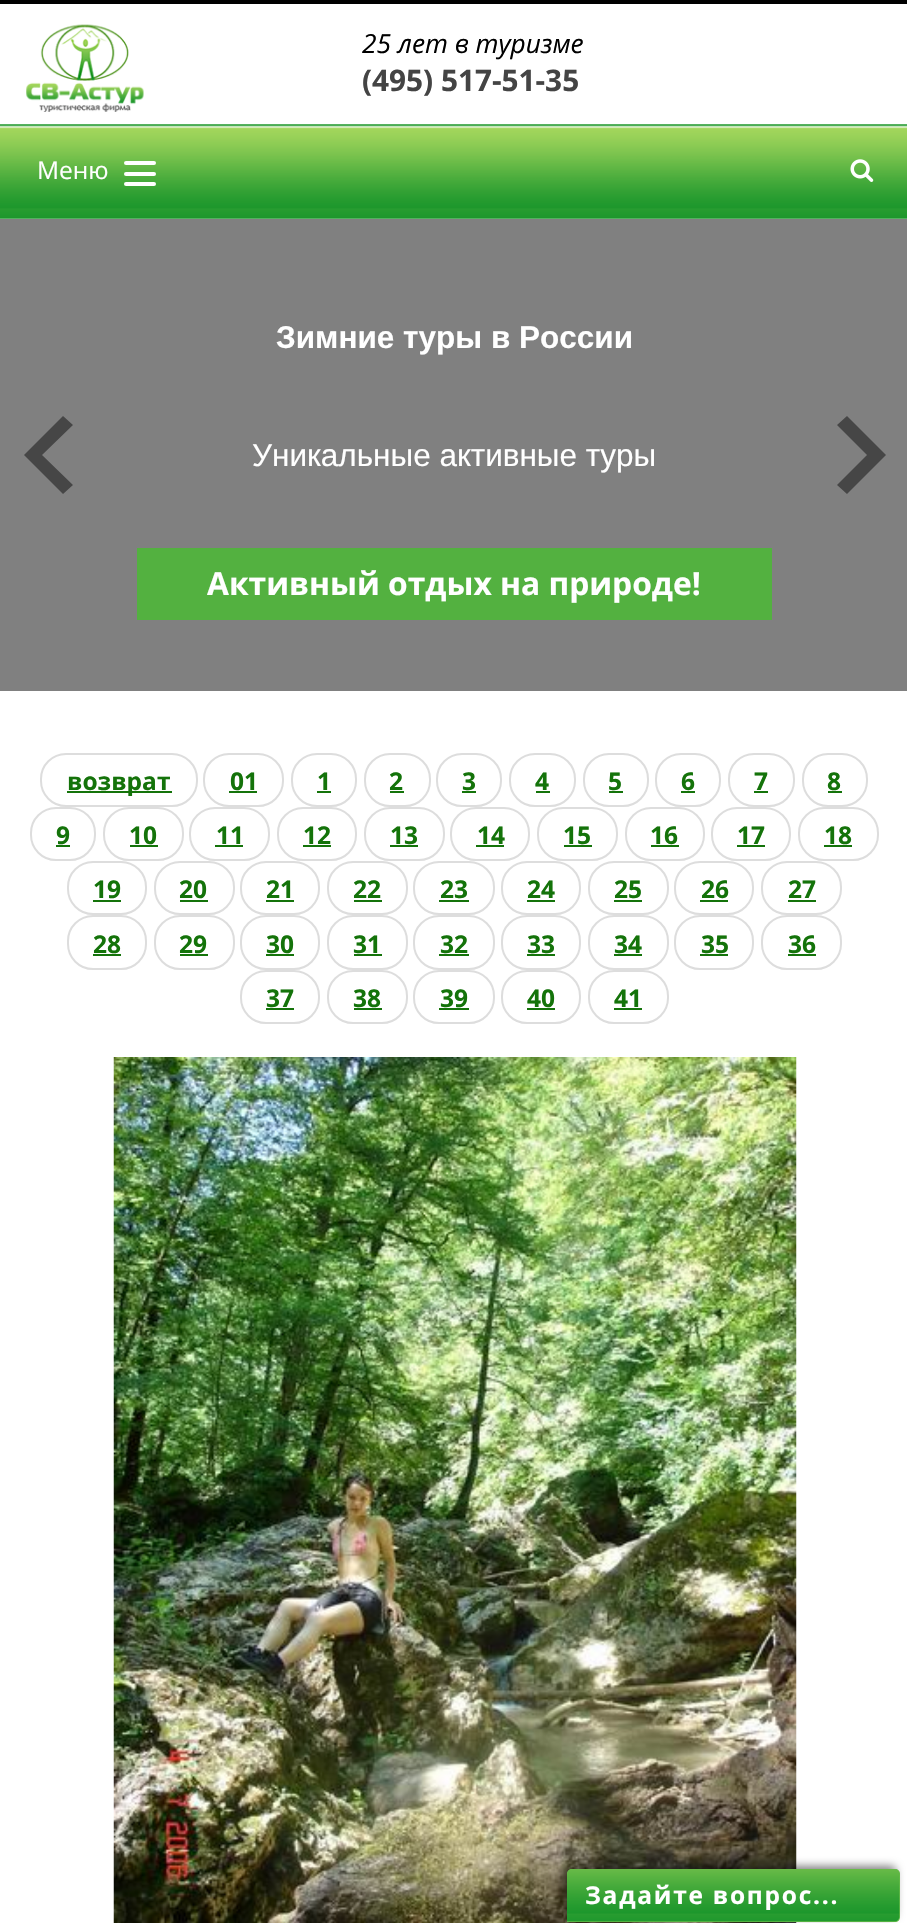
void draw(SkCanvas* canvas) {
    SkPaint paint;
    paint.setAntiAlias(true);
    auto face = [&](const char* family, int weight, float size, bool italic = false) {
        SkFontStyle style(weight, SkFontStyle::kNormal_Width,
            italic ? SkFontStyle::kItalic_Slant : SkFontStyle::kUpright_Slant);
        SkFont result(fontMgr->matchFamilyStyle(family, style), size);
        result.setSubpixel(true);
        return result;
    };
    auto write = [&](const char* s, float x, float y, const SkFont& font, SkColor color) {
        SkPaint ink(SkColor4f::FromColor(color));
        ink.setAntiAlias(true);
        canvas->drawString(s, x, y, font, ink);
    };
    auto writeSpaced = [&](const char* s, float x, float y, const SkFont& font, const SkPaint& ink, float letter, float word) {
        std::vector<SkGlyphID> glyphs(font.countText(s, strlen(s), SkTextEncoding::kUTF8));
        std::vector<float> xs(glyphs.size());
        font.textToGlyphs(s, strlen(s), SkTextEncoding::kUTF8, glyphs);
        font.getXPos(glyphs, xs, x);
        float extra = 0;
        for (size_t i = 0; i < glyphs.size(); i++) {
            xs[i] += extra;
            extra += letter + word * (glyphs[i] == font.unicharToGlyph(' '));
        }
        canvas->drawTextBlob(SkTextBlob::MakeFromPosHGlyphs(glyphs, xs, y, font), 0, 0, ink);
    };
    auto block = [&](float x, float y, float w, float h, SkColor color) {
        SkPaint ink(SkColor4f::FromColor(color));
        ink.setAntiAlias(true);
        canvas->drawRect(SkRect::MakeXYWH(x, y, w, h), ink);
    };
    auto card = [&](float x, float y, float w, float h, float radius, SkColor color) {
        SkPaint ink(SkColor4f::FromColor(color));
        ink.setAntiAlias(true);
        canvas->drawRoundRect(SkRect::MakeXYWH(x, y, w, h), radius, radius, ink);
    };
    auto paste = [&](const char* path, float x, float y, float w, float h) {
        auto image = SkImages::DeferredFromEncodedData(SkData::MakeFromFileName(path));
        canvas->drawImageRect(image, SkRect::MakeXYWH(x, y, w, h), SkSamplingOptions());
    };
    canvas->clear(SK_ColorWHITE);
    block(0, 0, 907, 4, SK_ColorBLACK);
    paste("pic1.png", 26, 24, 118, 88);
    auto kFont1 = face("Open Sans", 400, 26.25f, true);
    write("25 лет в туризме", 362, 53, kFont1, SK_ColorBLACK);
    auto kFont2 = face("Open Sans", 700, 29.75f);
    write("(495) 517-51-35", 362, 91, kFont2, SkColorSetRGB(68, 68, 68));
    paste("pic2.png", 0, 124, 907, 95);
    auto kFont3 = face("Open Sans", 400, 24.5f);
    write("Меню", 37, 179, kFont3, SK_ColorWHITE);
    card(124, 161, 32, 4, 2, SK_ColorWHITE);
    card(124, 172, 32, 4, 2, SK_ColorWHITE);
    card(124, 182, 32, 4, 2, SK_ColorWHITE);
    paste("pic3.png", 850, 159, 24, 23);
    block(0, 219, 907, 472, SkColorSetRGB(128, 128, 128));
    paint.setColor(SkColorSetRGB(70, 70, 70));
    canvas->drawPath(SkPathBuilder().moveTo(63, 416).lineTo(73, 425).lineTo(42, 455).lineTo(73, 485).lineTo(63, 494).lineTo(24, 455).close().detach(), paint);
    auto kFont4 = face("Liberation Sans", 700, 31.5f);
    write("Зимние туры в России", 276, 348, kFont4, SK_ColorWHITE);
    auto kFont5 = face("Liberation Sans", 400, 31.5f);
    write("Уникальные активные туры", 252, 466, kFont5, SK_ColorWHITE);
    block(137, 548, 635, 72, SkColorSetRGB(83, 177, 64));
    auto kFont6 = face("Open Sans", 700, 31.75f);
    write("Активный отдых на природе!", 207, 595, kFont6, SK_ColorWHITE);
    canvas->drawPath(SkPathBuilder().moveTo(837, 425).lineTo(847, 416).lineTo(886, 455).lineTo(847, 494).lineTo(837, 485).lineTo(867, 455).close().detach(), paint);
    paint.setStyle(SkPaint::kStroke_Style);
    paint.setStrokeWidth(2);
    paint.setColor(SkColorSetRGB(221, 221, 221));
    canvas->drawRoundRect(SkRect::MakeXYWH(41, 754, 156, 52), 25, 25, paint);
    block(67, 791, 105, 2, SkColorSetRGB(20, 115, 10));
    auto kFont7 = face("Open Sans", 700, 24.5f);
    write("возврат", 67, 790, kFont7, SkColorSetRGB(20, 115, 10));
    canvas->drawRoundRect(SkRect::MakeXYWH(204, 754, 79, 52), 25, 25, paint);
    write("01", 230, 790, kFont7, SkColorSetRGB(20, 115, 10));
    block(229, 791, 28, 2, SkColorSetRGB(20, 115, 10));
    canvas->drawRoundRect(SkRect::MakeXYWH(292, 754, 64, 52), 25, 25, paint);
    write("1", 317, 790, kFont7, SkColorSetRGB(20, 115, 10));
    block(317, 791, 14, 2, SkColorSetRGB(20, 115, 10));
    canvas->drawRoundRect(SkRect::MakeXYWH(365, 754, 65, 52), 25, 25, paint);
    write("2", 389, 790, kFont7, SkColorSetRGB(20, 115, 10));
    block(390, 791, 14, 2, SkColorSetRGB(20, 115, 10));
    canvas->drawRoundRect(SkRect::MakeXYWH(437, 754, 64, 52), 25, 25, paint);
    write("3", 462, 790, kFont7, SkColorSetRGB(20, 115, 10));
    block(462, 791, 14, 2, SkColorSetRGB(20, 115, 10));
    canvas->drawRoundRect(SkRect::MakeXYWH(510, 754, 65, 52), 25, 25, paint);
    write("4", 535, 790, kFont7, SkColorSetRGB(20, 115, 10));
    block(536, 791, 14, 2, SkColorSetRGB(20, 115, 10));
    canvas->drawRoundRect(SkRect::MakeXYWH(584, 754, 64, 52), 25, 25, paint);
    write("5", 608, 790, kFont7, SkColorSetRGB(20, 115, 10));
    block(609, 791, 14, 2, SkColorSetRGB(20, 115, 10));
    canvas->drawRoundRect(SkRect::MakeXYWH(656, 754, 64, 52), 25, 25, paint);
    write("6", 681, 790, kFont7, SkColorSetRGB(20, 115, 10));
    block(681, 791, 14, 2, SkColorSetRGB(20, 115, 10));
    canvas->drawRoundRect(SkRect::MakeXYWH(729, 754, 65, 52), 25, 25, paint);
    write("7", 754, 790, kFont7, SkColorSetRGB(20, 115, 10));
    block(754, 791, 14, 2, SkColorSetRGB(20, 115, 10));
    canvas->drawRoundRect(SkRect::MakeXYWH(803, 754, 64, 52), 25, 25, paint);
    write("8", 827, 790, kFont7, SkColorSetRGB(20, 115, 10));
    block(828, 791, 14, 2, SkColorSetRGB(20, 115, 10));
    canvas->drawRoundRect(SkRect::MakeXYWH(31, 808, 64, 52), 25, 25, paint);
    write("9", 56, 844, kFont7, SkColorSetRGB(20, 115, 10));
    block(56, 845, 14, 2, SkColorSetRGB(20, 115, 10));
    canvas->drawRoundRect(SkRect::MakeXYWH(104, 808, 79, 52), 25, 25, paint);
    write("10", 129, 844, kFont7, SkColorSetRGB(20, 115, 10));
    block(130, 845, 28, 2, SkColorSetRGB(20, 115, 10));
    canvas->drawRoundRect(SkRect::MakeXYWH(190, 808, 79, 52), 25, 25, paint);
    write("11", 216, 844, kFont7, SkColorSetRGB(20, 115, 10));
    block(215, 845, 28, 2, SkColorSetRGB(20, 115, 10));
    canvas->drawRoundRect(SkRect::MakeXYWH(278, 808, 78, 52), 25, 25, paint);
    write("12", 303, 844, kFont7, SkColorSetRGB(20, 115, 10));
    block(303, 845, 28, 2, SkColorSetRGB(20, 115, 10));
    canvas->drawRoundRect(SkRect::MakeXYWH(365, 808, 79, 52), 25, 25, paint);
    write("13", 390, 844, kFont7, SkColorSetRGB(20, 115, 10));
    block(390, 845, 28, 2, SkColorSetRGB(20, 115, 10));
    canvas->drawRoundRect(SkRect::MakeXYWH(451, 808, 78, 52), 25, 25, paint);
    write("14", 477, 844, kFont7, SkColorSetRGB(20, 115, 10));
    block(476, 845, 28, 2, SkColorSetRGB(20, 115, 10));
    canvas->drawRoundRect(SkRect::MakeXYWH(538, 808, 79, 52), 25, 25, paint);
    write("15", 563, 844, kFont7, SkColorSetRGB(20, 115, 10));
    block(564, 845, 28, 2, SkColorSetRGB(20, 115, 10));
    canvas->drawRoundRect(SkRect::MakeXYWH(626, 808, 78, 52), 25, 25, paint);
    write("16", 650, 844, kFont7, SkColorSetRGB(20, 115, 10));
    block(651, 845, 28, 2, SkColorSetRGB(20, 115, 10));
    canvas->drawRoundRect(SkRect::MakeXYWH(712, 808, 78, 52), 25, 25, paint);
    write("17", 737, 844, kFont7, SkColorSetRGB(20, 115, 10));
    block(737, 845, 28, 2, SkColorSetRGB(20, 115, 10));
    canvas->drawRoundRect(SkRect::MakeXYWH(799, 808, 79, 52), 25, 25, paint);
    write("18", 824, 844, kFont7, SkColorSetRGB(20, 115, 10));
    block(824, 845, 28, 2, SkColorSetRGB(20, 115, 10));
    canvas->drawRoundRect(SkRect::MakeXYWH(68, 862, 78, 52), 25, 25, paint);
    write("19", 93, 898, kFont7, SkColorSetRGB(20, 115, 10));
    block(93, 900, 28, 2, SkColorSetRGB(20, 115, 10));
    canvas->drawRoundRect(SkRect::MakeXYWH(155, 862, 79, 52), 25, 25, paint);
    write("20", 179, 898, kFont7, SkColorSetRGB(20, 115, 10));
    block(180, 900, 28, 2, SkColorSetRGB(20, 115, 10));
    canvas->drawRoundRect(SkRect::MakeXYWH(241, 862, 78, 52), 25, 25, paint);
    write("21", 266, 898, kFont7, SkColorSetRGB(20, 115, 10));
    block(266, 900, 28, 2, SkColorSetRGB(20, 115, 10));
    canvas->drawRoundRect(SkRect::MakeXYWH(328, 862, 79, 52), 25, 25, paint);
    write("22", 353, 898, kFont7, SkColorSetRGB(20, 115, 10));
    block(354, 900, 28, 2, SkColorSetRGB(20, 115, 10));
    canvas->drawRoundRect(SkRect::MakeXYWH(414, 862, 80, 52), 25, 25, paint);
    write("23", 440, 898, kFont7, SkColorSetRGB(20, 115, 10));
    block(439, 900, 30, 2, SkColorSetRGB(20, 115, 10));
    canvas->drawRoundRect(SkRect::MakeXYWH(502, 862, 78, 52), 25, 25, paint);
    write("24", 527, 898, kFont7, SkColorSetRGB(20, 115, 10));
    block(527, 900, 28, 2, SkColorSetRGB(20, 115, 10));
    canvas->drawRoundRect(SkRect::MakeXYWH(589, 862, 79, 52), 25, 25, paint);
    write("25", 614, 898, kFont7, SkColorSetRGB(20, 115, 10));
    block(614, 900, 28, 2, SkColorSetRGB(20, 115, 10));
    canvas->drawRoundRect(SkRect::MakeXYWH(675, 862, 78, 52), 25, 25, paint);
    write("26", 701, 898, kFont7, SkColorSetRGB(20, 115, 10));
    block(700, 900, 28, 2, SkColorSetRGB(20, 115, 10));
    canvas->drawRoundRect(SkRect::MakeXYWH(762, 862, 79, 52), 25, 25, paint);
    write("27", 788, 898, kFont7, SkColorSetRGB(20, 115, 10));
    block(788, 900, 28, 2, SkColorSetRGB(20, 115, 10));
    canvas->drawRoundRect(SkRect::MakeXYWH(68, 916, 78, 53), 25, 25, paint);
    write("28", 93, 953, kFont7, SkColorSetRGB(20, 115, 10));
    block(93, 954, 28, 2, SkColorSetRGB(20, 115, 10));
    canvas->drawRoundRect(SkRect::MakeXYWH(155, 916, 79, 53), 25, 25, paint);
    write("29", 179, 953, kFont7, SkColorSetRGB(20, 115, 10));
    block(180, 954, 28, 2, SkColorSetRGB(20, 115, 10));
    canvas->drawRoundRect(SkRect::MakeXYWH(241, 916, 78, 53), 25, 25, paint);
    write("30", 266, 953, kFont7, SkColorSetRGB(20, 115, 10));
    block(266, 954, 28, 2, SkColorSetRGB(20, 115, 10));
    canvas->drawRoundRect(SkRect::MakeXYWH(328, 916, 79, 53), 25, 25, paint);
    write("31", 353, 953, kFont7, SkColorSetRGB(20, 115, 10));
    block(354, 954, 28, 2, SkColorSetRGB(20, 115, 10));
    canvas->drawRoundRect(SkRect::MakeXYWH(414, 916, 80, 53), 25, 25, paint);
    write("32", 440, 953, kFont7, SkColorSetRGB(20, 115, 10));
    block(439, 954, 30, 2, SkColorSetRGB(20, 115, 10));
    canvas->drawRoundRect(SkRect::MakeXYWH(502, 916, 78, 53), 25, 25, paint);
    write("33", 527, 953, kFont7, SkColorSetRGB(20, 115, 10));
    block(527, 954, 28, 2, SkColorSetRGB(20, 115, 10));
    canvas->drawRoundRect(SkRect::MakeXYWH(589, 916, 79, 53), 25, 25, paint);
    write("34", 614, 953, kFont7, SkColorSetRGB(20, 115, 10));
    block(614, 954, 28, 2, SkColorSetRGB(20, 115, 10));
    canvas->drawRoundRect(SkRect::MakeXYWH(675, 916, 78, 53), 25, 25, paint);
    write("35", 701, 953, kFont7, SkColorSetRGB(20, 115, 10));
    block(700, 954, 28, 2, SkColorSetRGB(20, 115, 10));
    canvas->drawRoundRect(SkRect::MakeXYWH(762, 916, 79, 53), 25, 25, paint);
    write("36", 788, 953, kFont7, SkColorSetRGB(20, 115, 10));
    block(788, 954, 28, 2, SkColorSetRGB(20, 115, 10));
    canvas->drawRoundRect(SkRect::MakeXYWH(241, 971, 78, 52), 25, 25, paint);
    write("37", 266, 1007, kFont7, SkColorSetRGB(20, 115, 10));
    block(266, 1008, 28, 2, SkColorSetRGB(20, 115, 10));
    canvas->drawRoundRect(SkRect::MakeXYWH(328, 971, 79, 52), 25, 25, paint);
    write("38", 353, 1007, kFont7, SkColorSetRGB(20, 115, 10));
    block(354, 1008, 28, 2, SkColorSetRGB(20, 115, 10));
    canvas->drawRoundRect(SkRect::MakeXYWH(414, 971, 80, 52), 25, 25, paint);
    write("39", 440, 1007, kFont7, SkColorSetRGB(20, 115, 10));
    block(439, 1008, 30, 2, SkColorSetRGB(20, 115, 10));
    canvas->drawRoundRect(SkRect::MakeXYWH(502, 971, 78, 52), 25, 25, paint);
    write("40", 527, 1007, kFont7, SkColorSetRGB(20, 115, 10));
    block(527, 1008, 28, 2, SkColorSetRGB(20, 115, 10));
    canvas->drawRoundRect(SkRect::MakeXYWH(589, 971, 79, 52), 25, 25, paint);
    write("41", 614, 1007, kFont7, SkColorSetRGB(20, 115, 10));
    block(614, 1008, 28, 2, SkColorSetRGB(20, 115, 10));
    paste("pic4.png", 113, 1057, 684, 866);
    paint.setStyle(SkPaint::kFill_Style);
    paint.setColor(SkColorSetARGB(128, 0, 0, 0));
    paint.setMaskFilter(SkMaskFilter::MakeBlur(kNormal_SkBlurStyle, 4.5f));
    canvas->drawRoundRect(SkRect::MakeXYWH(564, 1866, 332, 52), 5, 5, paint);
    paint.setMaskFilter(nullptr);
    paint.setColor(SkColorSetRGB(100, 187, 72));
    canvas->drawPath(SkPathBuilder().moveTo(572, 1869).lineTo(895, 1869).cubicTo(898, 1869, 900, 1871, 900, 1874).lineTo(900, 1917).cubicTo(900, 1920, 898, 1922, 895, 1922).lineTo(567, 1922).lineTo(567, 1874).cubicTo(567, 1871, 569, 1869, 572, 1869).close().detach(), paint);
    paste("pic5.png", 567, 1869, 333, 53);
    paint.setColor(SK_ColorWHITE);
    writeSpaced("Задайте вопрос...", 585, 1904, kFont7, paint, 1.75f, 0);
}
